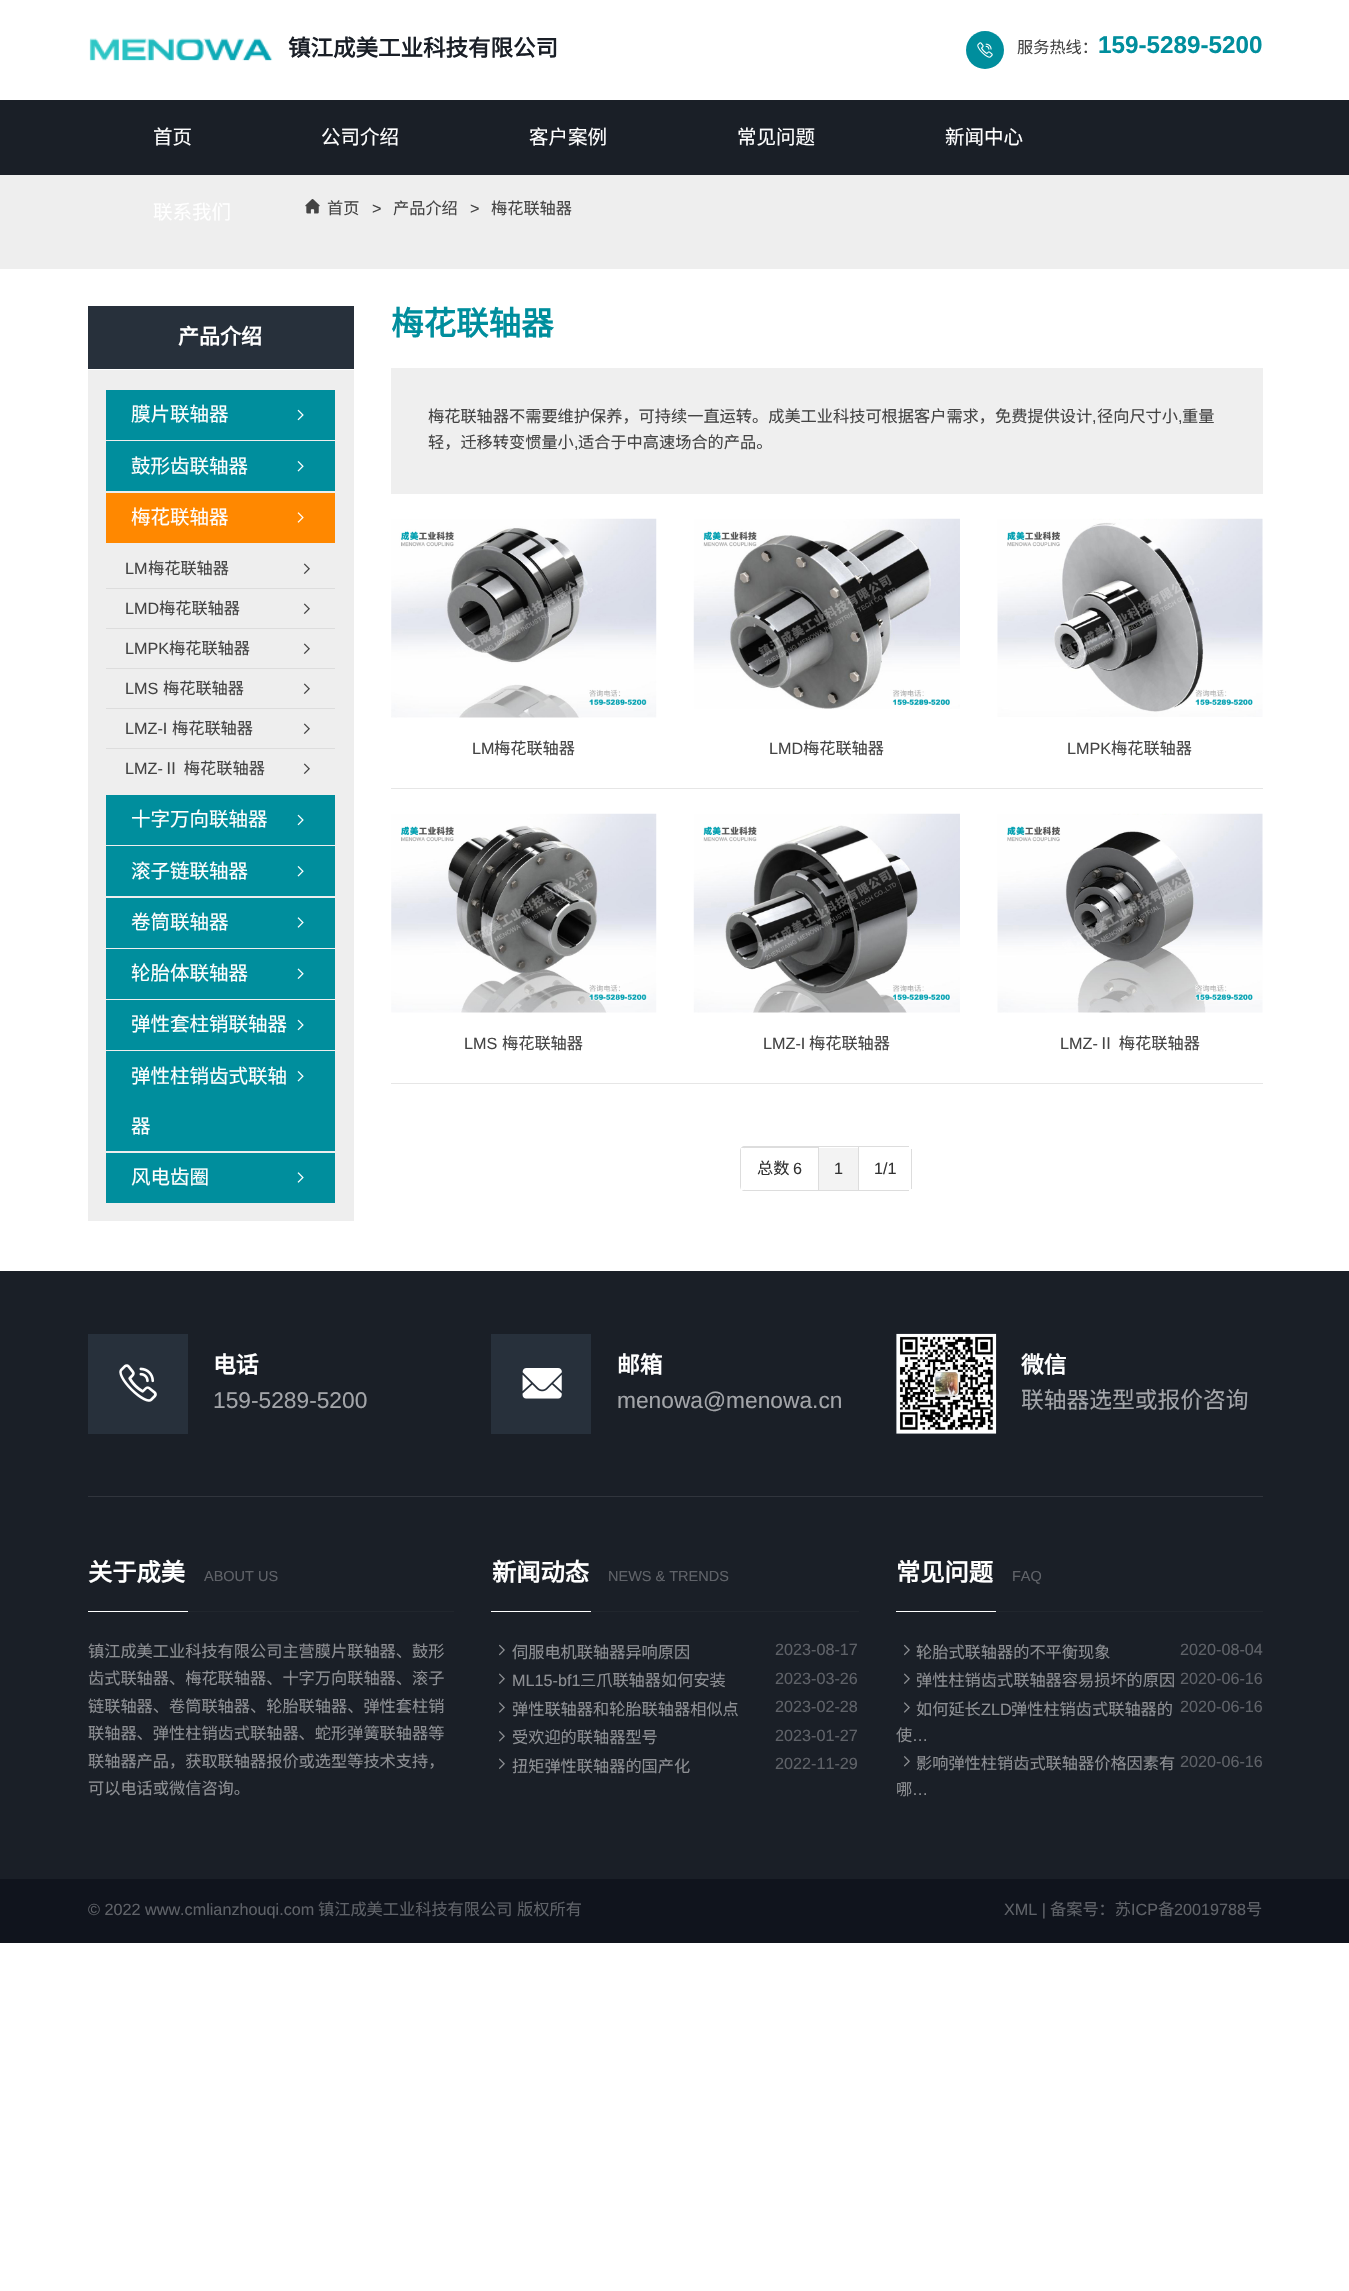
void draw(SkCanvas* canvas) {
    SkPaint paint;
    paint.setAntiAlias(true);
    auto face = [&](const char* family, int weight, float size, bool italic = false) {
        SkFontStyle style(weight, SkFontStyle::kNormal_Width,
            italic ? SkFontStyle::kItalic_Slant : SkFontStyle::kUpright_Slant);
        SkFont result(fontMgr->matchFamilyStyle(family, style), size);
        result.setSubpixel(true);
        return result;
    };
    auto write = [&](const char* s, float x, float y, const SkFont& font, SkColor color) {
        SkPaint ink(SkColor4f::FromColor(color));
        ink.setAntiAlias(true);
        canvas->drawString(s, x, y, font, ink);
    };
    auto writeSpaced = [&](const char* s, float x, float y, const SkFont& font, const SkPaint& ink, float letter, float word) {
        std::vector<SkGlyphID> glyphs(font.countText(s, strlen(s), SkTextEncoding::kUTF8));
        std::vector<float> xs(glyphs.size());
        font.textToGlyphs(s, strlen(s), SkTextEncoding::kUTF8, glyphs);
        font.getXPos(glyphs, xs, x);
        float extra = 0;
        for (size_t i = 0; i < glyphs.size(); i++) {
            xs[i] += extra;
            extra += letter + word * (glyphs[i] == font.unicharToGlyph(' '));
        }
        canvas->drawTextBlob(SkTextBlob::MakeFromPosHGlyphs(glyphs, xs, y, font), 0, 0, ink);
    };
    auto block = [&](float x, float y, float w, float h, SkColor color) {
        SkPaint ink(SkColor4f::FromColor(color));
        ink.setAntiAlias(true);
        canvas->drawRect(SkRect::MakeXYWH(x, y, w, h), ink);
    };
    auto paste = [&](const char* path, float x, float y, float w, float h) {
        auto image = SkImages::DeferredFromEncodedData(SkData::MakeFromFileName(path));
        canvas->drawImageRect(image, SkRect::MakeXYWH(x, y, w, h), SkSamplingOptions());
    };
    canvas->clear(SK_ColorWHITE);
    paste("pic1.png", 89, 38, 184, 23);
    auto kFont1 = face("Noto Sans CJK SC", 700, 22.5f);
    write("镇江成美工业科技有限公司", 288, 56, kFont1, SkColorSetRGB(26, 31, 39));
    paint.setColor(SkColorSetRGB(0, 142, 157));
    canvas->drawCircle(985, 50, 19, paint);
    paste("pic2.png", 977, 42, 16, 16);
    auto kFont2 = face("Noto Sans CJK SC", 400, 16.2f);
    write("服务热线：", 1017, 53, kFont2, SkColorSetRGB(68, 68, 68));
    auto kFont3 = face("Liberation Sans", 700, 24.25f);
    write("159-5289-5200", 1098, 53, kFont3, SkColorSetRGB(0, 142, 157));
    block(0, 100, 1349, 75, SkColorSetRGB(26, 31, 39));
    auto kFont4 = face("Noto Sans CJK SC", 400, 19.5f);
    write("首页", 153, 144, kFont4, SK_ColorWHITE);
    write("公司介绍", 321, 144, kFont4, SK_ColorWHITE);
    write("客户案例", 529, 144, kFont4, SK_ColorWHITE);
    write("常见问题", 737, 144, kFont4, SK_ColorWHITE);
    write("新闻中心", 945, 144, kFont4, SK_ColorWHITE);
    block(0, 175, 1349, 94, SkColorSetRGB(238, 238, 238));
    write("联系我们", 153, 219, kFont4, SK_ColorWHITE);
    paste("pic3.png", 305, 199, 15, 15);
    write("首页", 327, 214, kFont2, SkColorSetRGB(68, 68, 68));
    auto kFont5 = face("Liberation Sans", 400, 16.2f);
    write(">", 372, 214, kFont5, SkColorSetRGB(68, 68, 68));
    write("产品介绍", 393, 214, kFont2, SkColorSetRGB(68, 68, 68));
    write(">", 470, 214, kFont5, SkColorSetRGB(68, 68, 68));
    write("梅花联轴器", 491, 214, kFont2, SkColorSetRGB(68, 68, 68));
    block(88, 370, 266, 851, SkColorSetRGB(238, 238, 238));
    block(88, 306, 266, 63, SkColorSetRGB(39, 48, 59));
    auto kFont6 = face("Noto Sans CJK SC", 700, 21);
    write("产品介绍", 178, 344, kFont6, SK_ColorWHITE);
    block(106, 390, 229, 50, SkColorSetRGB(0, 142, 157));
    write("膜片联轴器", 131, 421, kFont4, SK_ColorWHITE);
    paste("pic4.png", 297, 409, 7, 12);
    block(106, 441, 229, 50, SkColorSetRGB(0, 142, 157));
    write("鼓形齿联轴器", 131, 473, kFont4, SK_ColorWHITE);
    paste("pic5.png", 297, 461, 7, 11);
    block(106, 493, 229, 50, SkColorSetRGB(255, 136, 0));
    write("梅花联轴器", 131, 524, kFont4, SK_ColorWHITE);
    paste("pic6.png", 297, 512, 7, 11);
    block(106, 588, 229, 1, SkColorSetRGB(221, 221, 221));
    write("LM", 125, 574, kFont5, SkColorSetRGB(68, 68, 68));
    write("梅花联轴器", 148, 574, kFont2, SkColorSetRGB(68, 68, 68));
    paste("pic7.png", 303, 563, 7, 11);
    block(106, 628, 229, 1, SkColorSetRGB(221, 221, 221));
    write("LMD", 125, 614, kFont5, SkColorSetRGB(68, 68, 68));
    write("梅花联轴器", 159, 614, kFont2, SkColorSetRGB(68, 68, 68));
    paste("pic7.png", 303, 603, 7, 11);
    block(106, 668, 229, 1, SkColorSetRGB(221, 221, 221));
    write("LMPK", 125, 654, kFont5, SkColorSetRGB(68, 68, 68));
    write("梅花联轴器", 169, 654, kFont2, SkColorSetRGB(68, 68, 68));
    paste("pic7.png", 303, 643, 7, 11);
    block(106, 708, 229, 1, SkColorSetRGB(221, 221, 221));
    write("LMS", 125, 694, kFont5, SkColorSetRGB(68, 68, 68));
    write("梅花联轴器", 163, 694, kFont2, SkColorSetRGB(68, 68, 68));
    paste("pic7.png", 303, 683, 7, 11);
    block(106, 748, 229, 1, SkColorSetRGB(221, 221, 221));
    write("LMZ-I", 125, 734, kFont5, SkColorSetRGB(68, 68, 68));
    write("梅花联轴器", 172, 734, kFont2, SkColorSetRGB(68, 68, 68));
    paste("pic7.png", 303, 723, 7, 11);
    write("LMZ-", 125, 774, kFont5, SkColorSetRGB(68, 68, 68));
    paint.setColor(SkColorSetRGB(68, 68, 68));
    writeSpaced("Ⅱ 梅花联轴器", 163, 774, kFont2, paint, 0, 1);
    paste("pic7.png", 303, 763, 7, 11);
    block(106, 795, 229, 50, SkColorSetRGB(0, 142, 157));
    write("十字万向联轴器", 131, 826, kFont4, SK_ColorWHITE);
    paste("pic4.png", 297, 814, 7, 12);
    block(106, 846, 229, 50, SkColorSetRGB(0, 142, 157));
    write("滚子链联轴器", 131, 878, kFont4, SK_ColorWHITE);
    paste("pic5.png", 297, 866, 7, 11);
    block(106, 898, 229, 50, SkColorSetRGB(0, 142, 157));
    write("卷筒联轴器", 131, 929, kFont4, SK_ColorWHITE);
    paste("pic8.png", 297, 917, 7, 11);
    block(106, 949, 229, 50, SkColorSetRGB(0, 142, 157));
    write("轮胎体联轴器", 131, 980, kFont4, SK_ColorWHITE);
    paste("pic9.png", 297, 968, 7, 11);
    block(106, 1000, 229, 50, SkColorSetRGB(0, 142, 157));
    write("弹性套柱销联轴器", 131, 1031, kFont4, SK_ColorWHITE);
    paste("pic4.png", 297, 1019, 7, 12);
    block(106, 1051, 229, 100, SkColorSetRGB(0, 142, 157));
    write("弹性柱销齿式联轴", 131, 1083, kFont4, SK_ColorWHITE);
    paste("pic5.png", 297, 1071, 7, 11);
    write("器", 131, 1133, kFont4, SK_ColorWHITE);
    block(106, 1153, 229, 50, SkColorSetRGB(0, 142, 157));
    write("风电齿圈", 131, 1184, kFont4, SK_ColorWHITE);
    paste("pic8.png", 297, 1172, 7, 11);
    auto kFont7 = face("Noto Sans CJK SC", 700, 32.5f);
    write("梅花联轴器", 391, 335, kFont7, SkColorSetRGB(0, 142, 157));
    block(391, 368, 872, 126, SkColorSetRGB(239, 239, 239));
    write("梅花联轴器不需要维护保养，可持续一直运转。成美工业科技可根据客户需求，免费提供设计", 428, 422, kFont2, SkColorSetRGB(68, 68, 68));
    write(",", 1092, 422, kFont5, SkColorSetRGB(68, 68, 68));
    write("径向尺寸小", 1097, 422, kFont2, SkColorSetRGB(68, 68, 68));
    write(",", 1178, 422, kFont5, SkColorSetRGB(68, 68, 68));
    write("重量", 1182, 422, kFont2, SkColorSetRGB(68, 68, 68));
    write("轻，迁移转变惯量小", 428, 448, kFont2, SkColorSetRGB(68, 68, 68));
    write(",", 574, 448, kFont5, SkColorSetRGB(68, 68, 68));
    write("适合于中高速场合的产品。", 578, 448, kFont2, SkColorSetRGB(68, 68, 68));
    paste("pic10.png", 391, 518, 266, 200);
    write("LM", 472, 754, kFont5, SkColorSetRGB(68, 68, 68));
    write("梅花联轴器", 494, 754, kFont2, SkColorSetRGB(68, 68, 68));
    paste("pic11.png", 693, 518, 267, 191);
    write("LMD", 769, 754, kFont5, SkColorSetRGB(68, 68, 68));
    write("梅花联轴器", 803, 754, kFont2, SkColorSetRGB(68, 68, 68));
    paste("pic12.png", 997, 518, 266, 199);
    write("LMPK", 1067, 754, kFont5, SkColorSetRGB(68, 68, 68));
    write("梅花联轴器", 1111, 754, kFont2, SkColorSetRGB(68, 68, 68));
    block(391, 788, 872, 1, SkColorSetRGB(230, 230, 230));
    paste("pic13.png", 391, 813, 266, 200);
    write("LMS", 464, 1049, kFont5, SkColorSetRGB(68, 68, 68));
    write("梅花联轴器", 502, 1049, kFont2, SkColorSetRGB(68, 68, 68));
    paste("pic14.png", 693, 813, 267, 200);
    write("LMZ-I", 763, 1049, kFont5, SkColorSetRGB(68, 68, 68));
    write("梅花联轴器", 809, 1049, kFont2, SkColorSetRGB(68, 68, 68));
    paste("pic15.png", 997, 813, 266, 200);
    write("LMZ-", 1060, 1049, kFont5, SkColorSetRGB(68, 68, 68));
    writeSpaced("Ⅱ 梅花联轴器", 1098, 1049, kFont2, paint, 0, 1);
    block(391, 1083, 872, 1, SkColorSetRGB(230, 230, 230));
    block(911, 1149, 1, 40, SkColorSetRGB(221, 221, 221));
    paint.setColor(SkColorSetRGB(221, 221, 221));
    canvas->drawPath(SkPathBuilder(SkPathFillType::kEvenOdd).moveTo(745, 1146).lineTo(818, 1146).lineTo(818, 1191).lineTo(745, 1191).cubicTo(742, 1191, 740, 1189, 740, 1186).lineTo(740, 1151).cubicTo(740, 1148, 742, 1146, 745, 1146).close().moveTo(745, 1148).lineTo(818, 1148).lineTo(818, 1190).lineTo(745, 1190).cubicTo(743, 1190, 741, 1188, 741, 1186).lineTo(741, 1151).cubicTo(741, 1149, 743, 1148, 745, 1148).close().detach(), paint);
    block(741, 1148, 3, 42, SK_ColorWHITE);
    write("总数", 757, 1174, kFont2, SkColorSetRGB(51, 51, 51));
    write("6", 793, 1174, kFont5, SkColorSetRGB(51, 51, 51));
    block(818, 1146, 91, 1, SkColorSetRGB(221, 221, 221));
    block(818, 1190, 91, 1, SkColorSetRGB(221, 221, 221));
    block(818, 1146, 1, 45, SkColorSetRGB(221, 221, 221));
    block(819, 1148, 39, 42, SkColorSetRGB(243, 243, 243));
    write("1", 834, 1174, kFont5, SkColorSetRGB(51, 51, 51));
    block(858, 1146, 1, 45, SkColorSetRGB(221, 221, 221));
    write("1/1", 874, 1174, kFont5, SkColorSetRGB(51, 51, 51));
    block(0, 1271, 1349, 608, SkColorSetRGB(26, 31, 39));
    block(88, 1334, 100, 100, SkColorSetRGB(39, 48, 59));
    paste("pic16.png", 119, 1364, 38, 38);
    auto kFont8 = face("Noto Sans CJK SC", 700, 22.75f);
    write("电话", 213, 1373, kFont8, SK_ColorWHITE);
    auto kFont9 = face("Liberation Sans", 400, 22.75f);
    write("159-5289-5200", 213, 1408, kFont9, SkColorSetRGB(163, 165, 169));
    block(491, 1334, 100, 100, SkColorSetRGB(39, 48, 59));
    paste("pic17.png", 522, 1368, 40, 31);
    write("邮箱", 617, 1373, kFont8, SK_ColorWHITE);
    write("menowa@menowa.cn", 617, 1408, kFont9, SkColorSetRGB(163, 165, 169));
    block(896, 1334, 100, 100, SkColorSetRGB(39, 48, 59));
    paste("pic18.png", 896, 1333, 101, 101);
    write("微信", 1021, 1373, kFont8, SK_ColorWHITE);
    auto kFont10 = face("Noto Sans CJK SC", 400, 22.75f);
    write("联轴器选型或报价咨询", 1021, 1408, kFont10, SkColorSetRGB(163, 165, 169));
    block(88, 1496, 1175, 1, SkColorSetRGB(49, 53, 61));
    auto kFont11 = face("Noto Sans CJK SC", 700, 24.25f);
    write("关于成美", 88, 1581, kFont11, SK_ColorWHITE);
    auto kFont12 = face("Liberation Sans", 400, 14.5f);
    write("ABOUT US", 204, 1581, kFont12, SkColorSetRGB(95, 98, 104));
    block(188, 1611, 266, 1, SkColorSetRGB(33, 38, 45));
    block(88, 1611, 100, 1, SK_ColorWHITE);
    write("镇江成美工业科技有限公司主营膜片联轴器、鼓形", 88, 1657, kFont2, SkColorSetRGB(141, 143, 147));
    write("齿式联轴器、梅花联轴器、十字万向联轴器、滚子", 88, 1684, kFont2, SkColorSetRGB(141, 143, 147));
    write("链联轴器、卷筒联轴器、轮胎联轴器、弹性套柱销", 88, 1712, kFont2, SkColorSetRGB(141, 143, 147));
    write("联轴器、弹性柱销齿式联轴器、蛇形弹簧联轴器等", 88, 1739, kFont2, SkColorSetRGB(141, 143, 147));
    write("联轴器产品，获取联轴器报价或选型等技术支持，", 88, 1767, kFont2, SkColorSetRGB(141, 143, 147));
    write("可以电话或微信咨询。", 88, 1794, kFont2, SkColorSetRGB(141, 143, 147));
    write("新闻动态", 492, 1581, kFont11, SK_ColorWHITE);
    write("NEWS & TRENDS", 608, 1581, kFont12, SkColorSetRGB(95, 98, 104));
    block(591, 1611, 268, 1, SkColorSetRGB(33, 38, 45));
    block(491, 1611, 100, 1, SK_ColorWHITE);
    paste("pic19.png", 499, 1644, 6, 12);
    write("伺服电机联轴器异响原因", 512, 1658, kFont2, SkColorSetRGB(141, 143, 147));
    write("2023-08-17", 775, 1655, kFont5, SkColorSetRGB(95, 98, 104));
    paste("pic20.png", 499, 1673, 6, 11);
    write("ML15-bf1", 512, 1686, kFont5, SkColorSetRGB(141, 143, 147));
    write("三爪联轴器如何安装", 580, 1686, kFont2, SkColorSetRGB(141, 143, 147));
    write("2023-03-26", 775, 1684, kFont5, SkColorSetRGB(95, 98, 104));
    paste("pic21.png", 499, 1702, 6, 11);
    write("弹性联轴器和轮胎联轴器相似点", 512, 1715, kFont2, SkColorSetRGB(141, 143, 147));
    write("2023-02-28", 775, 1712, kFont5, SkColorSetRGB(95, 98, 104));
    paste("pic22.png", 499, 1731, 6, 11);
    write("受欢迎的联轴器型号", 512, 1743, kFont2, SkColorSetRGB(141, 143, 147));
    write("2023-01-27", 775, 1741, kFont5, SkColorSetRGB(95, 98, 104));
    paste("pic20.png", 499, 1758, 6, 11);
    write("扭矩弹性联轴器的国产化", 512, 1772, kFont2, SkColorSetRGB(141, 143, 147));
    write("2022-11-29", 775, 1769, kFont5, SkColorSetRGB(95, 98, 104));
    write("常见问题", 896, 1581, kFont11, SK_ColorWHITE);
    write("FAQ", 1012, 1581, kFont12, SkColorSetRGB(95, 98, 104));
    block(996, 1611, 267, 1, SkColorSetRGB(33, 38, 45));
    block(896, 1611, 100, 1, SK_ColorWHITE);
    paste("pic19.png", 904, 1644, 6, 12);
    write("轮胎式联轴器的不平衡现象", 916, 1658, kFont2, SkColorSetRGB(141, 143, 147));
    write("2020-08-04", 1180, 1655, kFont5, SkColorSetRGB(95, 98, 104));
    paste("pic20.png", 904, 1673, 6, 11);
    write("弹性柱销齿式联轴器容易损坏的原因", 916, 1686, kFont2, SkColorSetRGB(141, 143, 147));
    write("2020-06-16", 1180, 1684, kFont5, SkColorSetRGB(95, 98, 104));
    paste("pic21.png", 904, 1702, 6, 11);
    write("如何延长", 916, 1715, kFont2, SkColorSetRGB(141, 143, 147));
    write("ZLD", 981, 1715, kFont5, SkColorSetRGB(141, 143, 147));
    write("弹性柱销齿式联轴器的", 1011, 1715, kFont2, SkColorSetRGB(141, 143, 147));
    write("2020-06-16", 1180, 1712, kFont5, SkColorSetRGB(95, 98, 104));
    write("使", 896, 1741, kFont2, SkColorSetRGB(141, 143, 147));
    write("…", 912, 1741, kFont5, SkColorSetRGB(141, 143, 147));
    paste("pic22.png", 904, 1756, 6, 11);
    write("影响弹性柱销齿式联轴器价格因素有", 916, 1769, kFont2, SkColorSetRGB(141, 143, 147));
    write("2020-06-16", 1180, 1767, kFont5, SkColorSetRGB(95, 98, 104));
    write("哪", 896, 1795, kFont2, SkColorSetRGB(141, 143, 147));
    write("…", 912, 1795, kFont5, SkColorSetRGB(141, 143, 147));
    block(0, 1879, 1349, 64, SkColorSetRGB(16, 20, 29));
    write("© 2022 www.cmlianzhouqi.com", 88, 1915, kFont5, SkColorSetRGB(95, 98, 104));
    paint.setColor(SkColorSetRGB(95, 98, 104));
    writeSpaced("镇江成美工业科技有限公司 版权所有", 318, 1915, kFont2, paint, 0, 1);
    write("XML |", 1004, 1915, kFont5, SkColorSetRGB(95, 98, 104));
    write("备案号：苏", 1050, 1915, kFont2, SkColorSetRGB(95, 98, 104));
    write("ICP", 1131, 1915, kFont5, SkColorSetRGB(95, 98, 104));
    write("备", 1158, 1915, kFont2, SkColorSetRGB(95, 98, 104));
    write("20019788", 1174, 1915, kFont5, SkColorSetRGB(95, 98, 104));
    write("号", 1246, 1915, kFont2, SkColorSetRGB(95, 98, 104));
}
